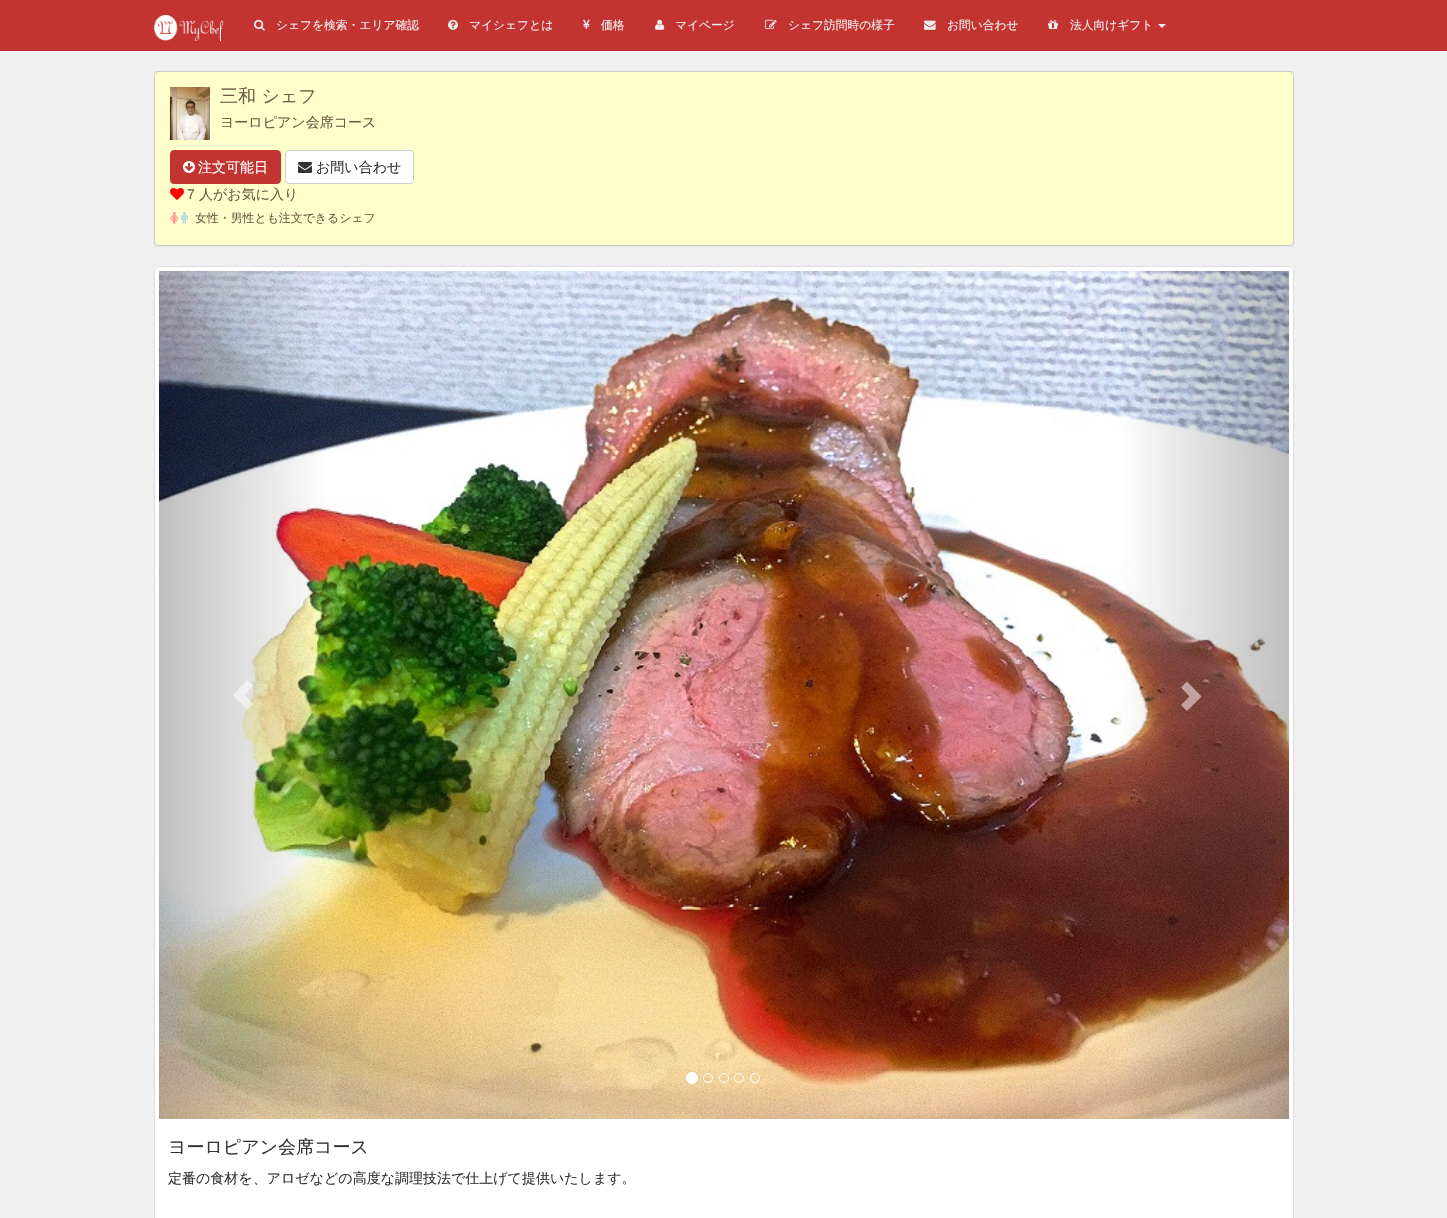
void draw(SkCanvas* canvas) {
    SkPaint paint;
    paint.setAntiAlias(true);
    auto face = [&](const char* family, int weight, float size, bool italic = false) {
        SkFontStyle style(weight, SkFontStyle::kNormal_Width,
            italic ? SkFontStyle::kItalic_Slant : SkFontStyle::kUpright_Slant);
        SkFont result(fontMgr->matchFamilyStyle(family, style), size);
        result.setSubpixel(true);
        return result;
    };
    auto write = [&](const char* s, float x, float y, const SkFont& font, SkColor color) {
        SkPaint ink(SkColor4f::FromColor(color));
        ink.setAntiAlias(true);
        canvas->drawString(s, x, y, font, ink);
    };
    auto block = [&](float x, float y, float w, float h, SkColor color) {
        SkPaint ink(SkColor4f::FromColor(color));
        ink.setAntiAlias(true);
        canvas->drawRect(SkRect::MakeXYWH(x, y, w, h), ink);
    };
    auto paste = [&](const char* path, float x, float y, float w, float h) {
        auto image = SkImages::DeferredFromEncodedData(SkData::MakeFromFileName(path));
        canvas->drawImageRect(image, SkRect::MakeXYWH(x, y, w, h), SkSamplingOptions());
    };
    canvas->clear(SkColorSetRGB(240, 240, 240));
    block(0, 0, 1447, 51, SkColorSetRGB(195, 51, 48));
    paste("pic1.png", 154, 15, 70, 26);
    paste("pic2.png", 254, 19, 11, 12);
    auto kFont1 = face("WenQuanYi Zen Hei", 500, 11.75f);
    write("シェフを検索・エリア確認", 276, 29, kFont1, SkColorSetRGB(238, 238, 238));
    paste("pic3.png", 448, 19, 10, 11);
    write("マイシェフとは", 469, 29, kFont1, SkColorSetRGB(238, 238, 238));
    paste("pic4.png", 583, 19, 7, 10);
    write("価格", 601, 29, kFont1, SkColorSetRGB(238, 238, 238));
    paste("pic5.png", 655, 19, 10, 11);
    write("マイページ", 675, 29, kFont1, SkColorSetRGB(238, 238, 238));
    paste("pic6.png", 765, 19, 12, 10);
    write("シェフ訪問時の様子", 788, 29, kFont1, SkColorSetRGB(238, 238, 238));
    paste("pic7.png", 924, 20, 12, 10);
    write("お問い合わせ", 947, 29, kFont1, SkColorSetRGB(238, 238, 238));
    paste("pic8.png", 1048, 20, 10, 9);
    write("法人向けギフト", 1070, 29, kFont1, SkColorSetRGB(238, 238, 238));
    paint.setColor(SkColorSetRGB(238, 238, 238));
    canvas->drawPath(SkPathBuilder().moveTo(1158, 24).lineTo(1166, 24).lineTo(1162, 28).close().detach(), paint);
    paint.setColor(SkColorSetARGB(13, 0, 0, 0));
    paint.setMaskFilter(SkMaskFilter::MakeBlur(kNormal_SkBlurStyle, 0.5f));
    canvas->drawRoundRect(SkRect::MakeXYWH(154, 72, 1140, 175), 4, 4, paint);
    paint.setMaskFilter(nullptr);
    paint.setColor(SkColorSetRGB(255, 255, 204));
    canvas->drawRoundRect(SkRect::MakeXYWH(154.5f, 71.5f, 1139, 174), 3.5f, 3.5f, paint);
    paint.setStyle(SkPaint::kStroke_Style);
    paint.setStrokeWidth(1);
    paint.setColor(SkColorSetRGB(204, 204, 204));
    canvas->drawRoundRect(SkRect::MakeXYWH(154.5f, 71.5f, 1139, 174), 3.5f, 3.5f, paint);
    paste("pic9.png", 170, 87, 40, 53);
    auto kFont2 = face("WenQuanYi Zen Hei", 500, 18);
    write("三和 シェフ", 220, 102, kFont2, SkColorSetRGB(109, 91, 66));
    auto kFont3 = face("WenQuanYi Zen Hei", 500, 14);
    write("ヨーロピアン会席コース", 220, 127, kFont3, SkColorSetRGB(109, 91, 66));
    paint.setStyle(SkPaint::kFill_Style);
    paint.setColor(SkColorSetRGB(195, 51, 48));
    canvas->drawRoundRect(SkRect::MakeXYWH(170.5f, 150.5f, 110, 33), 3.5f, 3.5f, paint);
    paint.setStyle(SkPaint::kStroke_Style);
    canvas->drawRoundRect(SkRect::MakeXYWH(170.5f, 150.5f, 110, 33), 3.5f, 3.5f, paint);
    paste("pic10.png", 183, 161, 12, 12);
    write("注文可能日", 198, 172, kFont3, SK_ColorWHITE);
    paint.setStyle(SkPaint::kFill_Style);
    paint.setColor(SK_ColorWHITE);
    canvas->drawRoundRect(SkRect::MakeXYWH(285.5f, 150.5f, 128, 33), 3.5f, 3.5f, paint);
    paint.setStyle(SkPaint::kStroke_Style);
    paint.setColor(SkColorSetRGB(204, 204, 204));
    canvas->drawRoundRect(SkRect::MakeXYWH(285.5f, 150.5f, 128, 33), 3.5f, 3.5f, paint);
    paste("pic11.png", 298, 162, 14, 11);
    write("お問い合わせ", 316, 172, kFont3, SkColorSetRGB(51, 51, 51));
    paste("pic12.png", 170, 188, 14, 12);
    auto kFont4 = face("Liberation Sans", 400, 14);
    write("7", 187, 199, kFont4, SkColorSetRGB(109, 91, 66));
    write("人がお気に入り", 199, 199, kFont3, SkColorSetRGB(109, 91, 66));
    paste("pic13.png", 170, 212, 9, 12);
    paste("pic14.png", 181, 212, 7, 12);
    auto kFont5 = face("WenQuanYi Zen Hei", 500, 11.9f);
    write("女性・男性とも注文できるシェフ", 195, 222, kFont5, SkColorSetRGB(109, 91, 66));
    paint.setStyle(SkPaint::kFill_Style);
    paint.setColor(SK_ColorWHITE);
    canvas->drawRoundRect(SkRect::MakeXYWH(154.5f, 266.5f, 1139, 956), 3.5f, 3.5f, paint);
    paint.setStyle(SkPaint::kStroke_Style);
    paint.setColor(SkColorSetRGB(221, 221, 221));
    canvas->drawRoundRect(SkRect::MakeXYWH(154.5f, 266.5f, 1139, 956), 3.5f, 3.5f, paint);
    paste("pic15.png", 159, 271, 1130, 848);
    paint.setStyle(SkPaint::kFill_Style);
    paint.setColor(SkColorSetARGB(128, 255, 255, 255));
    canvas->drawPath(SkPathBuilder().moveTo(232.5f, 695).lineTo(247.5f, 710).lineTo(253.5f, 704).lineTo(244.5f, 695).lineTo(253.5f, 686).lineTo(247.5f, 680).close().detach(), paint);
    canvas->drawPath(SkPathBuilder().moveTo(1181, 705).lineTo(1189.5f, 696.5f).lineTo(1181, 687.5f).lineTo(1187, 681.5f).lineTo(1201.5f, 696.5f).lineTo(1187, 711).close().detach(), paint);
    paint.setColor(SK_ColorWHITE);
    canvas->drawCircle(692, 1078, 5.5f, paint);
    paint.setStyle(SkPaint::kStroke_Style);
    canvas->drawCircle(692, 1078, 5.5f, paint);
    canvas->drawCircle(708, 1078, 4.5f, paint);
    canvas->drawCircle(724, 1078, 4.5f, paint);
    canvas->drawCircle(739, 1078, 4.5f, paint);
    canvas->drawCircle(755, 1078, 4.5f, paint);
    write("ヨーロピアン会席コース", 168, 1153, kFont2, SkColorSetRGB(51, 51, 51));
    write("定番の食材を、アロゼなどの高度な調理技法で仕上げて提供いたします。", 168, 1183, kFont3, SkColorSetRGB(51, 51, 51));
}
